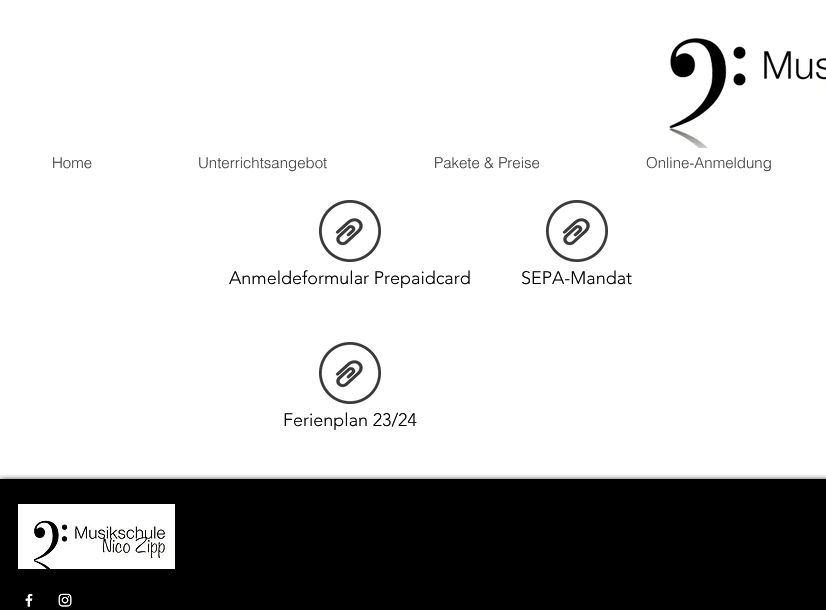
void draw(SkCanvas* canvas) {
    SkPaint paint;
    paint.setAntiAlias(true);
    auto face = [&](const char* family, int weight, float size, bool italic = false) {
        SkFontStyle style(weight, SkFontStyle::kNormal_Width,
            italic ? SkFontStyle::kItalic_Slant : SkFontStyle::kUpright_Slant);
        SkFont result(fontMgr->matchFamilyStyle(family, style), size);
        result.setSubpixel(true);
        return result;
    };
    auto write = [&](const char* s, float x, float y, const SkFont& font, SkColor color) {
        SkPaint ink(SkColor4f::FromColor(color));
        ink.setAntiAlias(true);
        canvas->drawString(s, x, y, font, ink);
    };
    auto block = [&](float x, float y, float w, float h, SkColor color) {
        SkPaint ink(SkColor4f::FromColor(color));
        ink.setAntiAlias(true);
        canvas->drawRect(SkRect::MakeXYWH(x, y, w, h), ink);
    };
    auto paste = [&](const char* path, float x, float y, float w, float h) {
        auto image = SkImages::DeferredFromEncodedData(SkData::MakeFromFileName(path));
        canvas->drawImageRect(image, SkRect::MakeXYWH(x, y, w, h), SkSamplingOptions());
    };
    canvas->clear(SK_ColorWHITE);
    paste("pic1.png", 669, 38, 157, 110);
    auto kFont1 = face("helvetica", 300, 15);
    write("Home", 52, 168, kFont1, SkColorSetRGB(68, 68, 68));
    write("Unterrichtsangebot", 198, 168, kFont1, SkColorSetRGB(68, 68, 68));
    write("Pakete & Preise", 434, 168, kFont1, SkColorSetRGB(68, 68, 68));
    write("Online-Anmeldung", 646, 168, kFont1, SkColorSetRGB(68, 68, 68));
    paste("pic2.png", 319, 200, 62, 62);
    auto kFont2 = face("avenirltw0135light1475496", 300, 18);
    write("Anmeldeformular Prepaidcard", 229, 284, kFont2, SK_ColorBLACK);
    paste("pic2.png", 546, 200, 62, 62);
    write("SEPA-Mandat", 521, 284, kFont2, SK_ColorBLACK);
    paste("pic2.png", 319, 342, 62, 62);
    write("Ferienplan 23/24", 283, 426, kFont2, SK_ColorBLACK);
    paint.setColor(SkColorSetARGB(179, 0, 0, 0));
    paint.setMaskFilter(SkMaskFilter::MakeBlur(kNormal_SkBlurStyle, 2.5f));
    canvas->drawRect(SkRect::MakeXYWH(0, 479, 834, 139), paint);
    paint.setMaskFilter(nullptr);
    block(0, 479, 826, 131, SK_ColorBLACK);
    paste("pic3.png", 18, 504, 157, 65);
    paste("pic4.png", 25, 593, 8, 14);
    paste("pic5.png", 58, 593, 14, 14);
}
